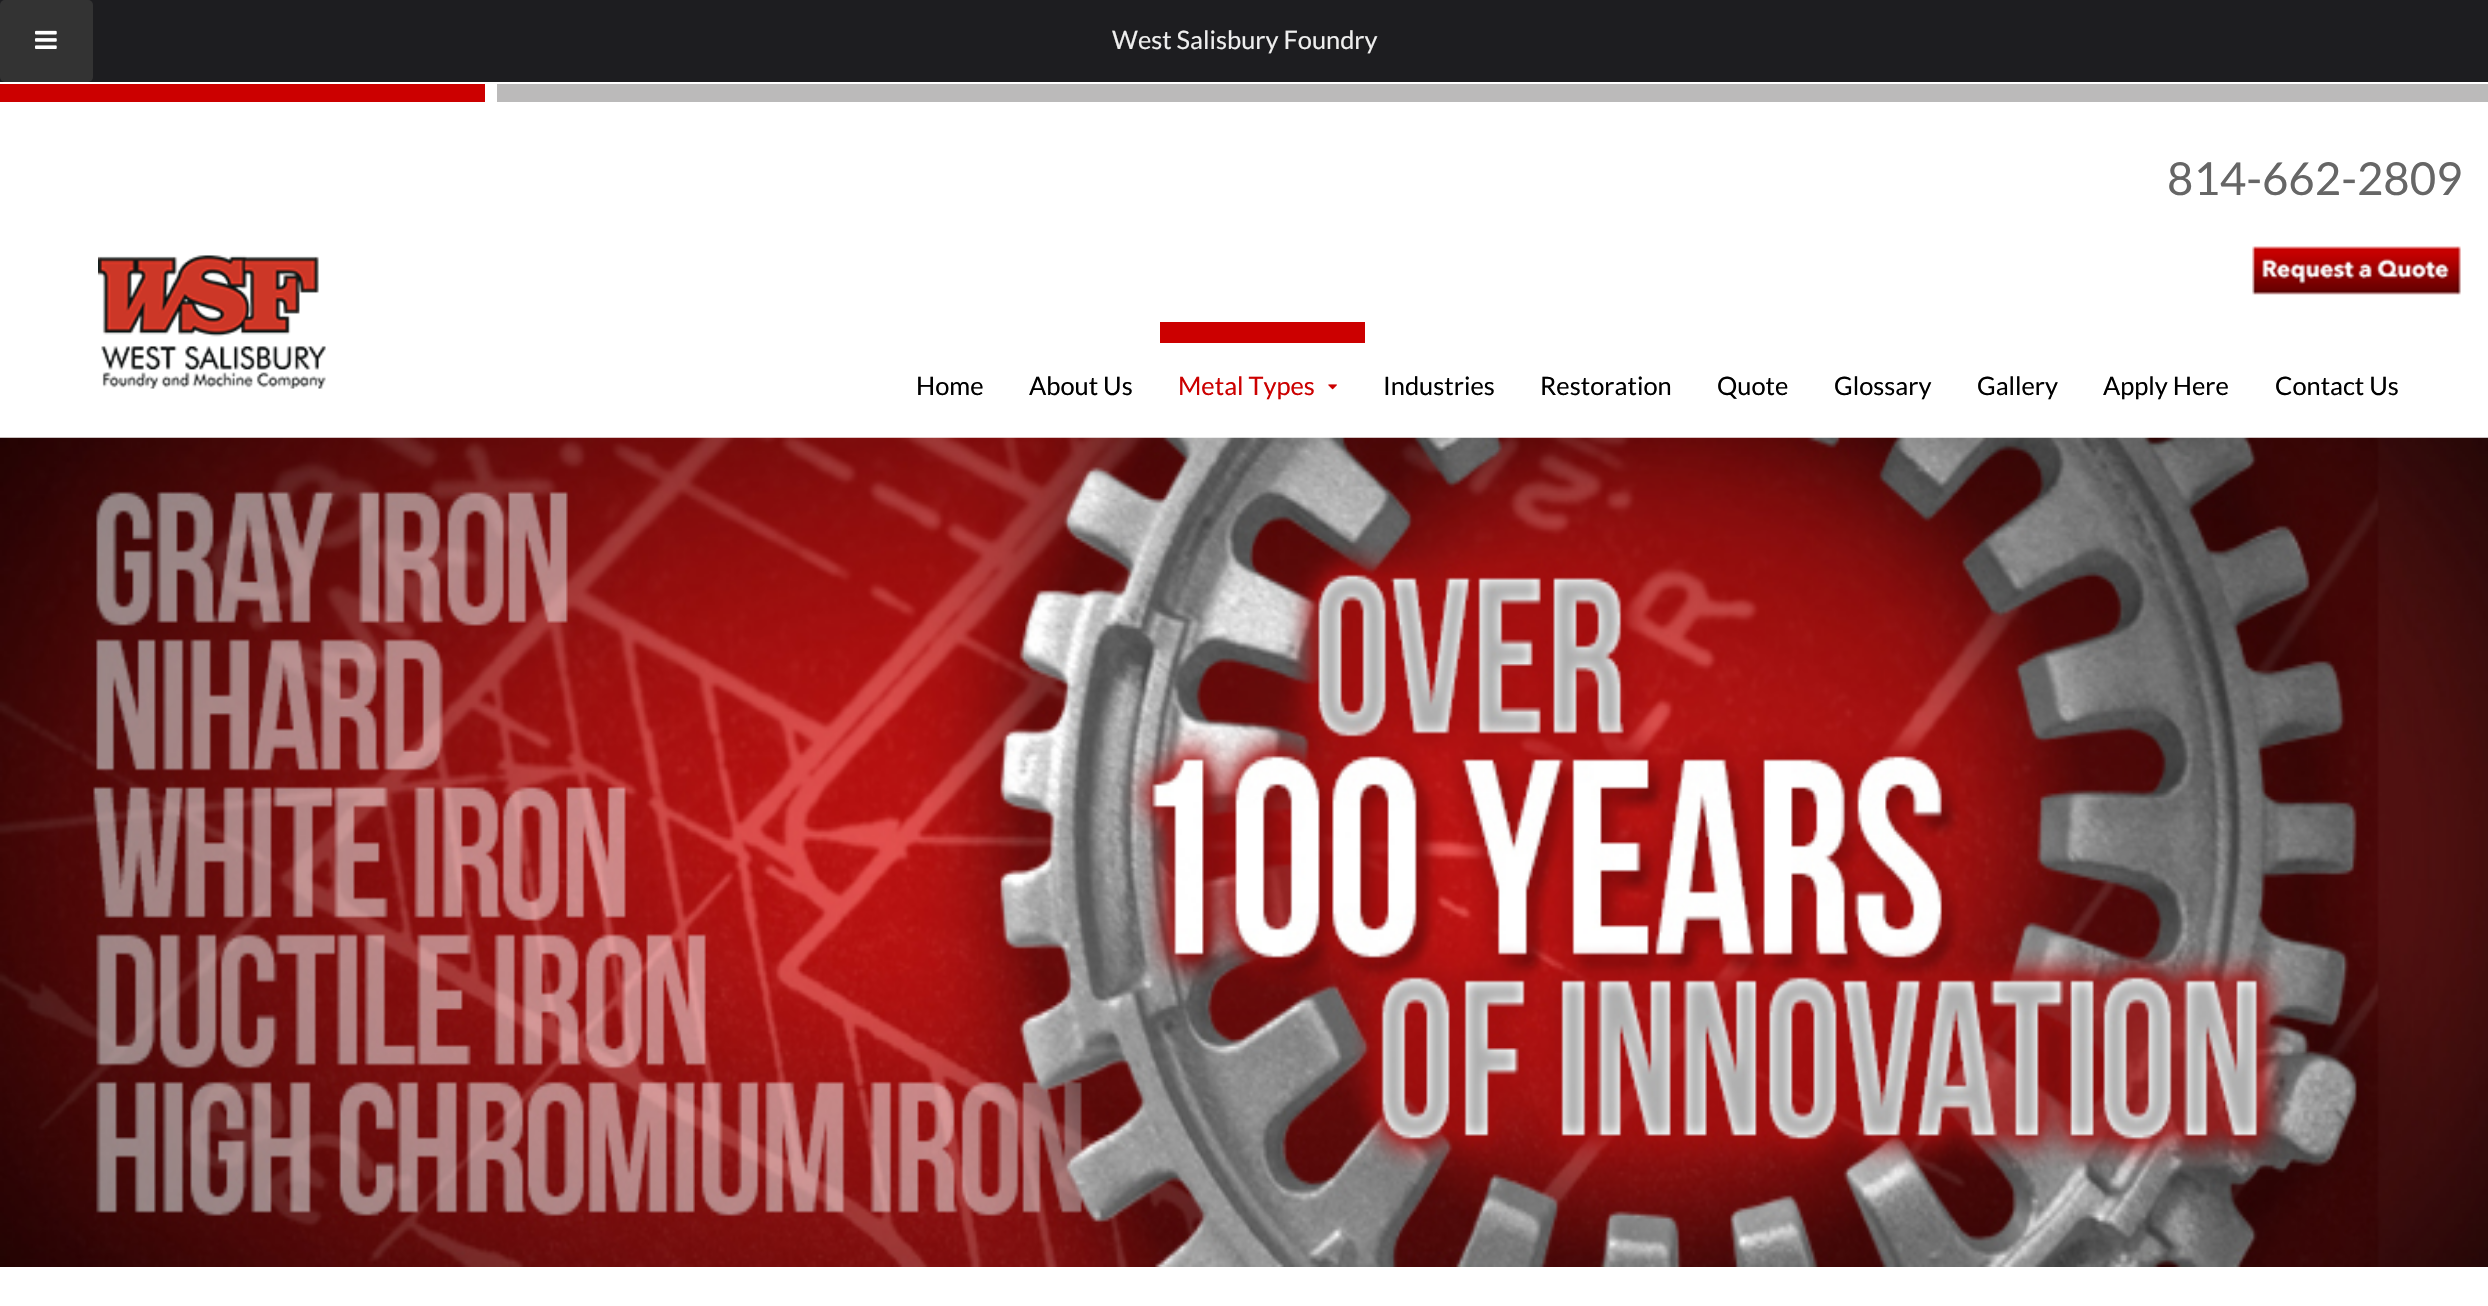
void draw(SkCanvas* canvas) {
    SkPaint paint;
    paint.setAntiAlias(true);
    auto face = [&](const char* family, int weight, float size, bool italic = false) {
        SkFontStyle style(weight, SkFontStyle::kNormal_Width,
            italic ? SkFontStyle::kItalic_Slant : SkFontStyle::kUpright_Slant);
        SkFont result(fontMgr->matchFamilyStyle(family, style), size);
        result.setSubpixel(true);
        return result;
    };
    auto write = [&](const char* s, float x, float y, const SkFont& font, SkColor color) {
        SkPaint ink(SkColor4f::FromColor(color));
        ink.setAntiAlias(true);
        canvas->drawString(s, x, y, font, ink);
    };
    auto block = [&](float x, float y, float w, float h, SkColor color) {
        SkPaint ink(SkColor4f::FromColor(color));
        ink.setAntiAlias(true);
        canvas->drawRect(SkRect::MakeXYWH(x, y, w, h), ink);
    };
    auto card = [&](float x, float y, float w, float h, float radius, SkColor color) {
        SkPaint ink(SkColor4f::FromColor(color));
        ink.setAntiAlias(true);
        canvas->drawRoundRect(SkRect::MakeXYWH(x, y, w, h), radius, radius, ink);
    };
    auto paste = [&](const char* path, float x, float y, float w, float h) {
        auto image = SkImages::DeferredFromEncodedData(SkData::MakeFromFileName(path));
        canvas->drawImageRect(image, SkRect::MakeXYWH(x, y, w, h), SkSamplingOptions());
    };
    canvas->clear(SK_ColorWHITE);
    block(0, 0, 2488, 82, SkColorSetRGB(29, 29, 32));
    card(0, 0, 93, 82, 5, SkColorSetRGB(51, 51, 51));
    paste("pic1.png", 35, 30, 22, 19);
    auto kFont1 = face("Lato", 400, 25.4f);
    write("West Salisbury Foundry", 1112, 49, kFont1, SkColorSetRGB(238, 238, 238));
    block(0, 84, 485, 18, SkColorSetRGB(204, 0, 0));
    block(497, 84, 1991, 18, SkColorSetRGB(187, 186, 186));
    auto kFont2 = face("Lato", 400, 45.5f);
    write("814-662-2809", 2167, 195, kFont2, SkColorSetRGB(102, 102, 102));
    paste("pic2.png", 2252, 246, 209, 49);
    paste("pic3.png", 98, 255, 228, 134);
    write("Home", 916, 395, kFont1, SK_ColorBLACK);
    write("About Us", 1029, 395, kFont1, SK_ColorBLACK);
    block(1160, 322, 205, 21, SkColorSetRGB(204, 0, 0));
    write("Metal Types", 1178, 395, kFont1, SkColorSetRGB(204, 0, 0));
    paste("pic4.png", 1328, 384, 9, 6);
    write("Industries", 1383, 395, kFont1, SK_ColorBLACK);
    write("Restoration", 1540, 395, kFont1, SK_ColorBLACK);
    write("Quote", 1717, 395, kFont1, SK_ColorBLACK);
    write("Glossary", 1834, 395, kFont1, SK_ColorBLACK);
    write("Gallery", 1977, 395, kFont1, SK_ColorBLACK);
    write("Apply Here", 2103, 395, kFont1, SK_ColorBLACK);
    write("Contact Us", 2275, 395, kFont1, SK_ColorBLACK);
    paste("pic5.png", 0, 437, 2488, 830);
}
